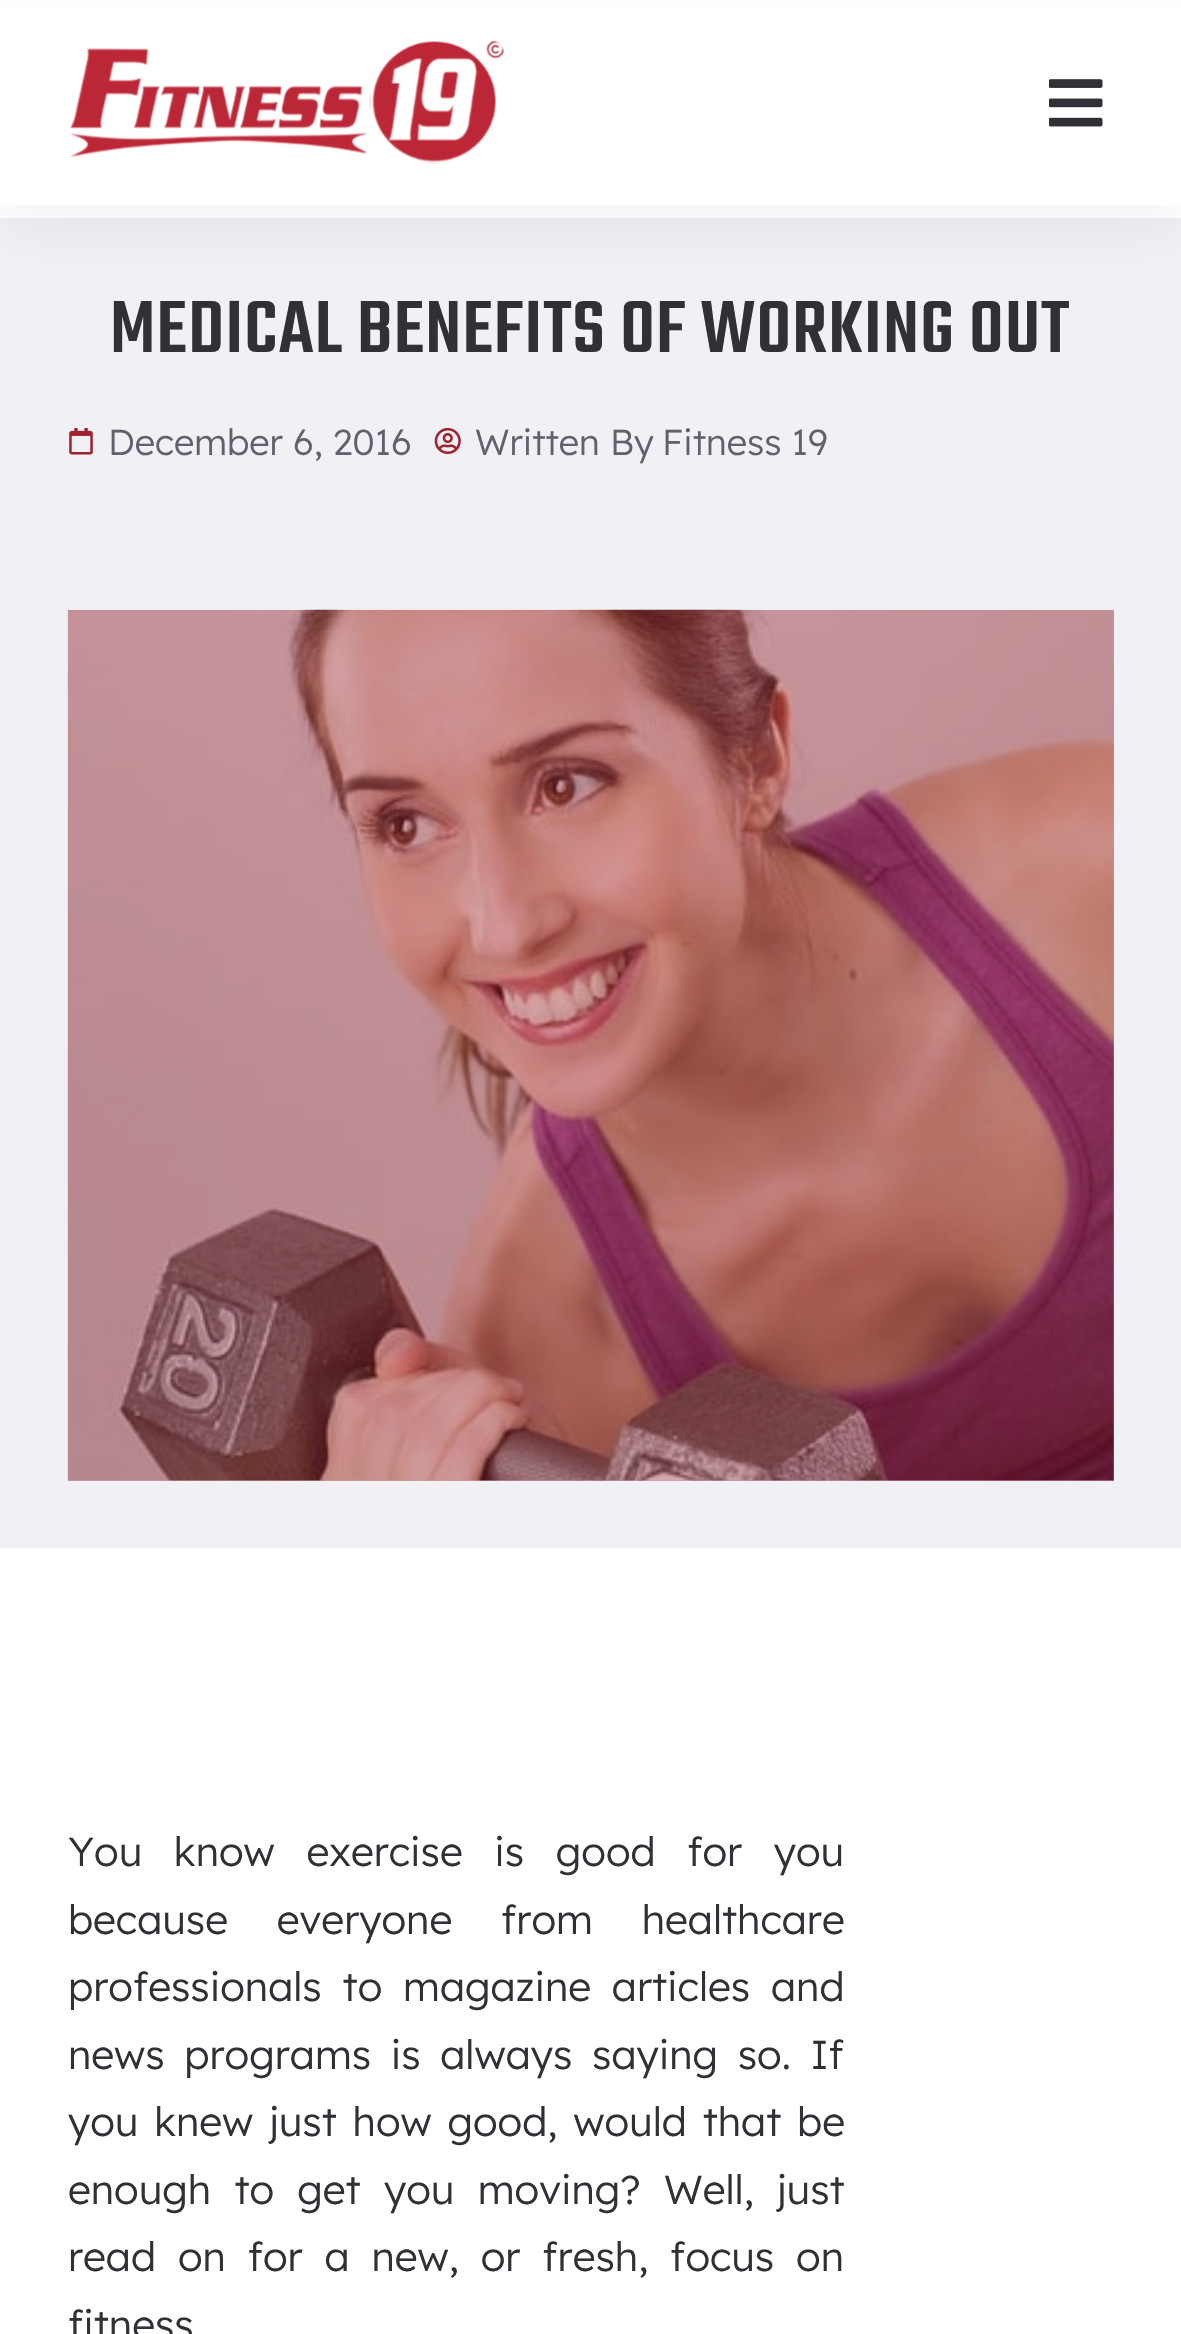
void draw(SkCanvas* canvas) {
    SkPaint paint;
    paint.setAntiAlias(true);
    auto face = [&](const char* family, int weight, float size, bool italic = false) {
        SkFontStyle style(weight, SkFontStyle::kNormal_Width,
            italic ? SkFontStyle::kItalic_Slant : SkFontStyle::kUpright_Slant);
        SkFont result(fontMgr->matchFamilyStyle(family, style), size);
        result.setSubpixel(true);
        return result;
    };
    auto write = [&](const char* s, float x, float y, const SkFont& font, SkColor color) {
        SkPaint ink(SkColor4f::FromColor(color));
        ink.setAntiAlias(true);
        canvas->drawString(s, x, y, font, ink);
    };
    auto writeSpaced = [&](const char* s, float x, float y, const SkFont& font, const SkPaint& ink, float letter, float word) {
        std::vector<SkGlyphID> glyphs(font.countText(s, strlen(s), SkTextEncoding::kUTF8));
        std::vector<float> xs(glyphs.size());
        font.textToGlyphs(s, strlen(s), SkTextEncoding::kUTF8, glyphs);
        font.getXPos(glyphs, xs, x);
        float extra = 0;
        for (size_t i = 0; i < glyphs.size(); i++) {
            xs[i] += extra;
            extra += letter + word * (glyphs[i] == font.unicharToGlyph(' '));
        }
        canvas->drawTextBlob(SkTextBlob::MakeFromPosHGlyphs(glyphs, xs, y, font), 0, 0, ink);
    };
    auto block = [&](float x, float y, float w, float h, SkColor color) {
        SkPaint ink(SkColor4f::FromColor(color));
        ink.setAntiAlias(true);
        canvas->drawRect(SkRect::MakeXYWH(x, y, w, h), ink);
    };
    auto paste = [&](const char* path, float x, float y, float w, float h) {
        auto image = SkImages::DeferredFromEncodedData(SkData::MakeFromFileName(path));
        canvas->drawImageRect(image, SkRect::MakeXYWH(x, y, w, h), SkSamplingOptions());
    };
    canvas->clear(SK_ColorWHITE);
    block(0, 218, 1181, 1330, SkColorSetRGB(240, 240, 245));
    paint.setColor(SkColorSetARGB(13, 25, 47, 87));
    paint.setMaskFilter(SkMaskFilter::MakeBlur(kNormal_SkBlurStyle, 27));
    canvas->drawRect(SkRect::MakeXYWH(0, 27, 1181, 205), paint);
    paint.setMaskFilter(nullptr);
    block(0, 7, 1181, 198, SK_ColorWHITE);
    paste("pic1.png", 68, 40, 436, 124);
    paste("pic2.png", 1049, 79, 54, 48);
    block(68, 610, 1046, 871, SkColorSetRGB(208, 157, 166));
    auto kFont1 = face("Teko", 500, 81);
    paint.setColor(SkColorSetRGB(49, 48, 54));
    writeSpaced("MEDICAL BENEFITS OF WORKING OUT", 110, 352, kFont1, paint, 1.1f, 0);
    paste("pic3.png", 69, 428, 24, 27);
    auto kFont2 = face("Lexend", 300, 36);
    write("December 6, 2016", 108, 455, kFont2, SkColorSetRGB(98, 96, 108));
    paste("pic4.png", 434, 428, 27, 27);
    write("Written By", 475, 455, kFont2, SkColorSetRGB(98, 96, 108));
    write("Fitness 19", 662, 455, kFont2, SkColorSetRGB(98, 96, 108));
    paste("pic5.png", 67, 609, 1047, 872);
    auto kFont3 = face("Lexend", 300, 40.5f);
    writeSpaced("You know exercise is good for you", 68, 1866, kFont3, paint, 0, 20.25f);
    writeSpaced("because everyone from healthcare", 68, 1934, kFont3, paint, 0, 37.5f);
    writeSpaced("professionals to magazine articles and", 68, 2001, kFont3, paint, 0, 9.5f);
    writeSpaced("news programs is always saying so. If", 68, 2069, kFont3, paint, 0, 8.25f);
    writeSpaced("you knew just how good, would that be", 68, 2136, kFont3, paint, 0, 4.5f);
    writeSpaced("enough to get you moving? Well, just", 68, 2204, kFont3, paint, 0, 12);
    writeSpaced("read on for a new, or fresh, focus on", 68, 2271, kFont3, paint, 0, 10.5f);
    write("fitness", 68, 2339, kFont3, SkColorSetRGB(49, 48, 54));
}
